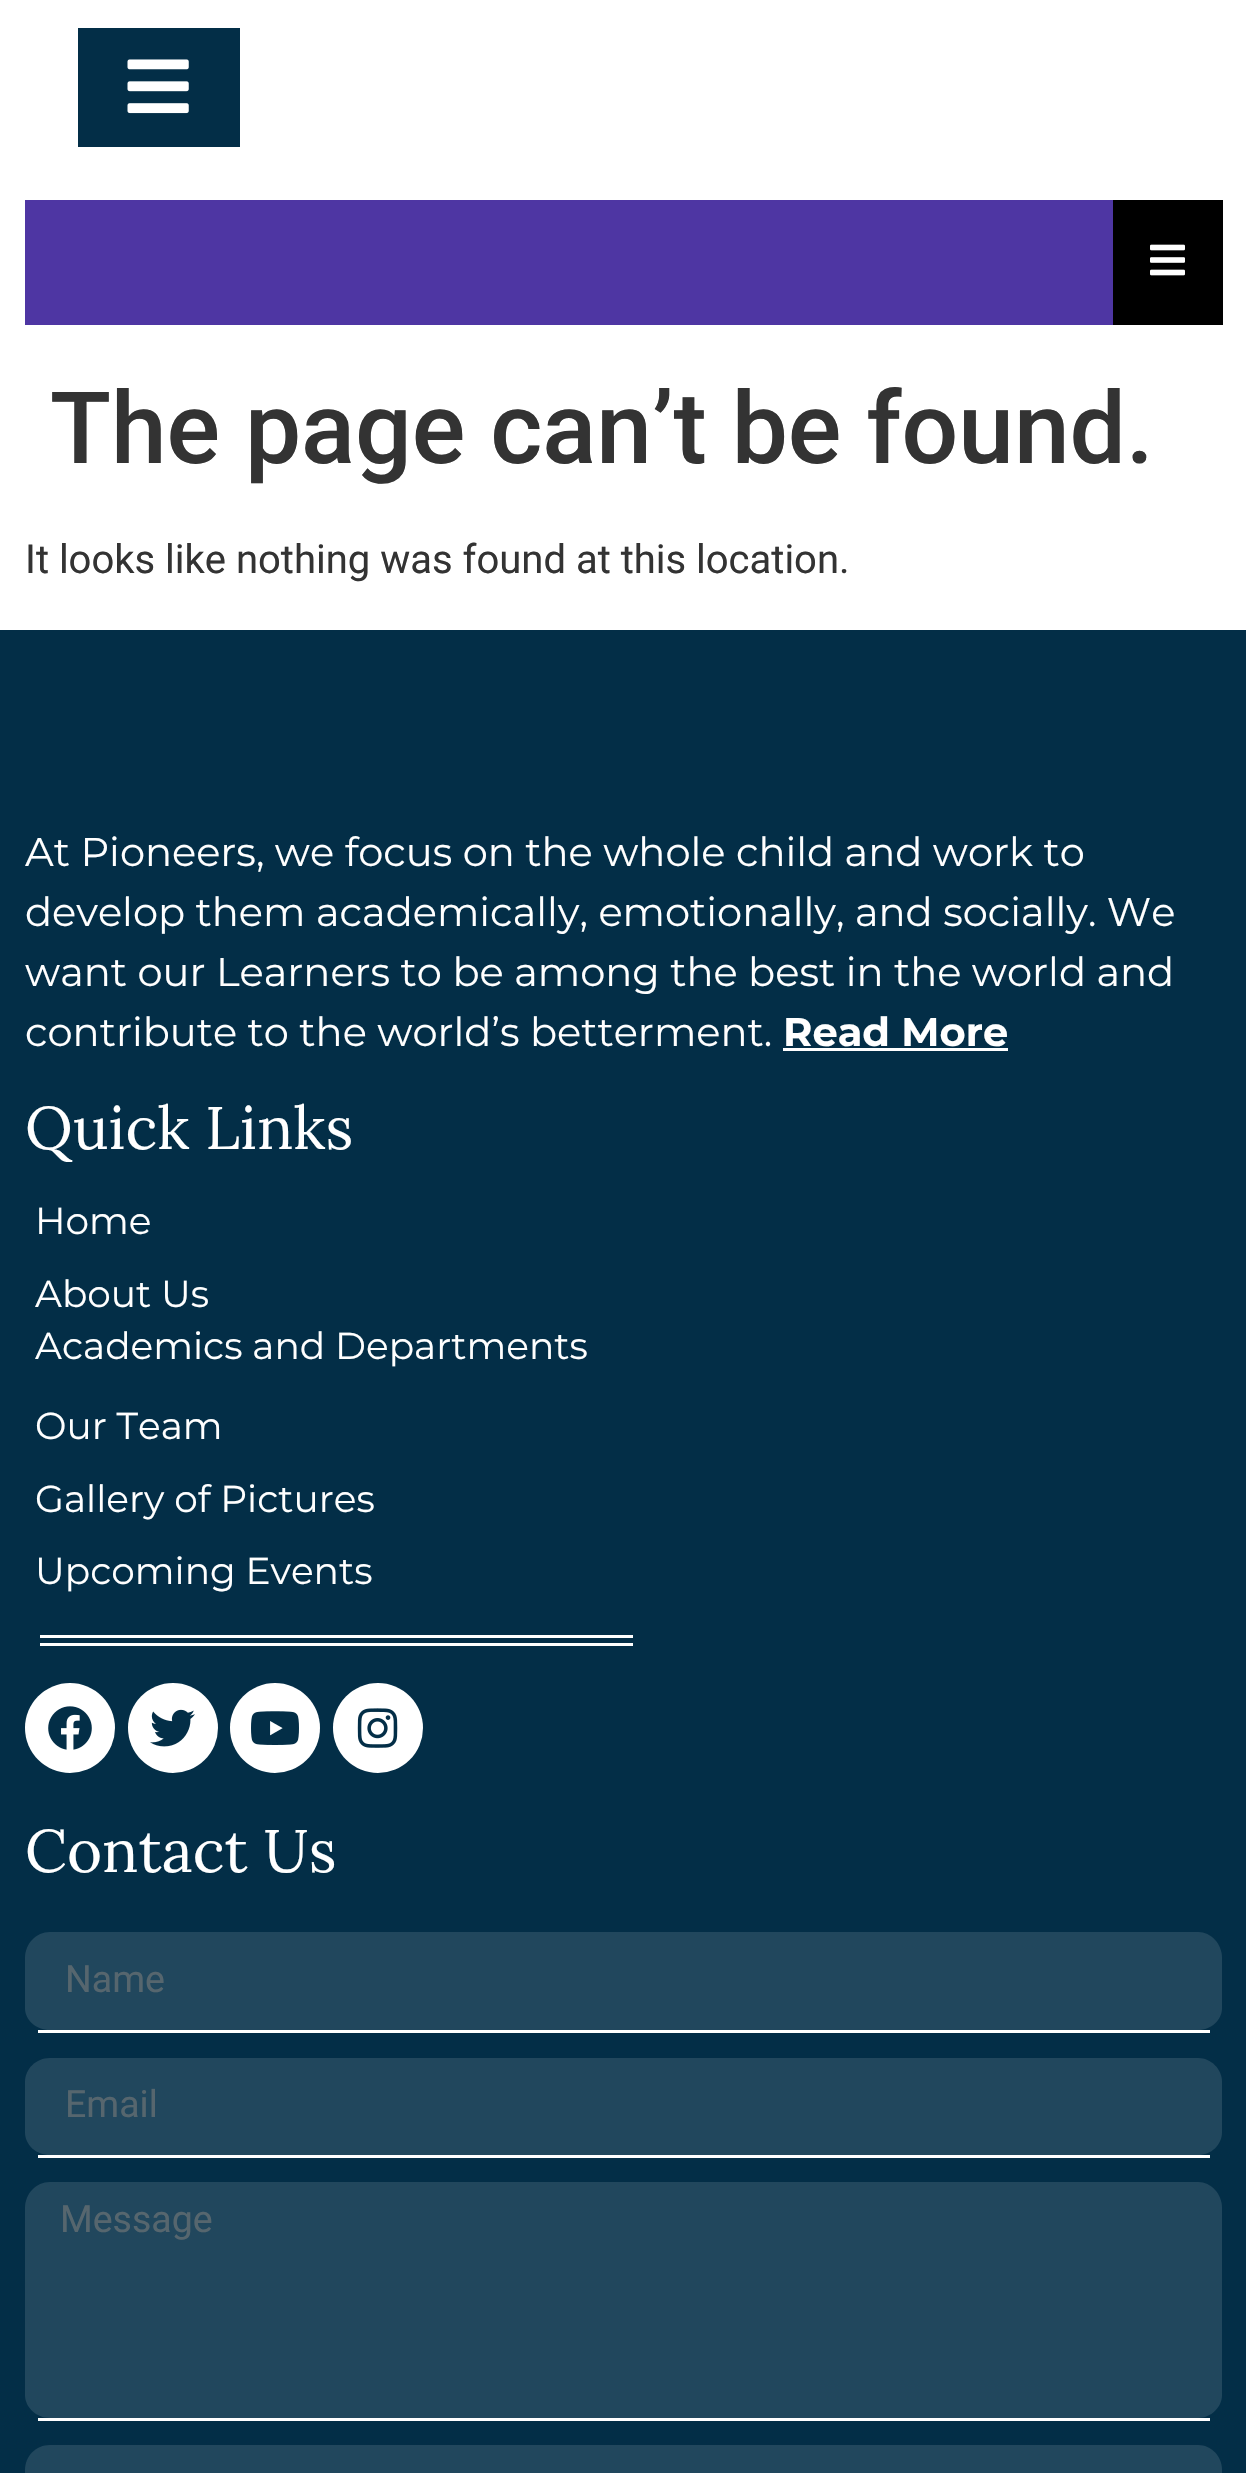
void draw(SkCanvas* canvas) {
    SkPaint paint;
    paint.setAntiAlias(true);
    auto face = [&](const char* family, int weight, float size, bool italic = false) {
        SkFontStyle style(weight, SkFontStyle::kNormal_Width,
            italic ? SkFontStyle::kItalic_Slant : SkFontStyle::kUpright_Slant);
        SkFont result(fontMgr->matchFamilyStyle(family, style), size);
        result.setSubpixel(true);
        return result;
    };
    auto write = [&](const char* s, float x, float y, const SkFont& font, SkColor color) {
        SkPaint ink(SkColor4f::FromColor(color));
        ink.setAntiAlias(true);
        canvas->drawString(s, x, y, font, ink);
    };
    auto block = [&](float x, float y, float w, float h, SkColor color) {
        SkPaint ink(SkColor4f::FromColor(color));
        ink.setAntiAlias(true);
        canvas->drawRect(SkRect::MakeXYWH(x, y, w, h), ink);
    };
    auto paste = [&](const char* path, float x, float y, float w, float h) {
        auto image = SkImages::DeferredFromEncodedData(SkData::MakeFromFileName(path));
        canvas->drawImageRect(image, SkRect::MakeXYWH(x, y, w, h), SkSamplingOptions());
    };
    canvas->clear(SK_ColorWHITE);
    block(78, 28, 162, 119, SkColorSetRGB(3, 46, 71));
    paste("pic1.png", 127, 59, 62, 55);
    block(25, 200, 1088, 125, SkColorSetRGB(78, 54, 163));
    block(1113, 200, 110, 125, SK_ColorBLACK);
    paste("pic2.png", 1150, 244, 35, 32);
    auto kFont1 = face("Roboto", 500, 100);
    write("The page can’t be found.", 50, 463, kFont1, SkColorSetRGB(51, 51, 51));
    auto kFont2 = face("Roboto", 400, 40);
    write("It looks like nothing was found at this location.", 25, 573, kFont2, SkColorSetRGB(51, 51, 51));
    block(0, 630, 1246, 1843, SkColorSetRGB(3, 46, 71));
    auto kFont3 = face("Montserrat", 400, 40);
    write("At Pioneers, we focus on the whole child and work to", 25, 866, kFont3, SK_ColorWHITE);
    write("develop them academically, emotionally, and socially. We", 25, 926, kFont3, SK_ColorWHITE);
    write("want our Learners to be among the best in the world and", 25, 986, kFont3, SK_ColorWHITE);
    write("contribute to the world’s betterment.", 25, 1046, kFont3, SK_ColorWHITE);
    auto kFont4 = face("Montserrat", 700, 40);
    write("Read More", 783, 1046, kFont4, SK_ColorWHITE);
    block(783, 1048, 225, 3, SK_ColorWHITE);
    auto kFont5 = face("Lora", 400, 60);
    write("Quick Links", 25, 1149, kFont5, SK_ColorWHITE);
    auto kFont6 = face("Montserrat", 400, 37.5f);
    write("Home", 35, 1234, kFont6, SK_ColorWHITE);
    write("About Us", 35, 1307, kFont6, SK_ColorWHITE);
    write("Academics and Departments", 35, 1359, kFont6, SK_ColorWHITE);
    write("Our Team", 35, 1439, kFont6, SK_ColorWHITE);
    write("Gallery of Pictures", 35, 1512, kFont6, SK_ColorWHITE);
    write("Upcoming Events", 35, 1584, kFont6, SK_ColorWHITE);
    block(40, 1635, 593, 3, SK_ColorWHITE);
    block(40, 1643, 593, 3, SK_ColorWHITE);
    paint.setColor(SK_ColorWHITE);
    canvas->drawCircle(70, 1728, 45, paint);
    paste("pic3.png", 48, 1706, 44, 44);
    canvas->drawCircle(173, 1728, 45, paint);
    paste("pic4.png", 150, 1709, 45, 38);
    canvas->drawCircle(275, 1728, 45, paint);
    paste("pic5.png", 251, 1711, 48, 34);
    canvas->drawCircle(378, 1728, 45, paint);
    paste("pic6.png", 357, 1708, 41, 40);
    write("Contact Us", 25, 1872, kFont5, SK_ColorWHITE);
    paint.setColor(SkColorSetRGB(33, 71, 93));
    canvas->drawPath(SkPathBuilder().moveTo(50, 1932).lineTo(1198, 1932).cubicTo(1211, 1932, 1222, 1944, 1222, 1958).lineTo(1222, 2008).cubicTo(1222, 2020, 1211, 2030, 1198, 2030).lineTo(50, 2030).cubicTo(36, 2030, 25, 2020, 25, 2008).lineTo(25, 1958).cubicTo(25, 1944, 36, 1932, 50, 1932).close().detach(), paint);
    block(38, 2030, 1172, 3, SK_ColorWHITE);
    auto kFont7 = face("Roboto", 400, 37.5f);
    write("Name", 65, 1992, kFont7, SkColorSetRGB(86, 102, 110));
    canvas->drawPath(SkPathBuilder().moveTo(50, 2058).lineTo(1198, 2058).cubicTo(1211, 2058, 1222, 2069, 1222, 2082).lineTo(1222, 2132).cubicTo(1222, 2145, 1211, 2155, 1198, 2155).lineTo(50, 2155).cubicTo(36, 2155, 25, 2145, 25, 2132).lineTo(25, 2082).cubicTo(25, 2069, 36, 2058, 50, 2058).close().detach(), paint);
    block(38, 2155, 1172, 3, SK_ColorWHITE);
    write("Email", 65, 2117, kFont7, SkColorSetRGB(86, 102, 110));
    canvas->drawPath(SkPathBuilder().moveTo(50, 2182).lineTo(1198, 2182).cubicTo(1211, 2182, 1222, 2194, 1222, 2208).lineTo(1222, 2395).cubicTo(1222, 2407, 1211, 2418, 1198, 2418).lineTo(50, 2418).cubicTo(36, 2418, 25, 2407, 25, 2395).lineTo(25, 2208).cubicTo(25, 2194, 36, 2182, 50, 2182).close().detach(), paint);
    block(38, 2418, 1172, 3, SK_ColorWHITE);
    write("Message", 60, 2232, kFont7, SkColorSetRGB(86, 102, 110));
    canvas->drawPath(SkPathBuilder().moveTo(50, 2445).lineTo(1198, 2445).cubicTo(1211, 2445, 1222, 2456, 1222, 2470).lineTo(1222, 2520).cubicTo(1222, 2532, 1211, 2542, 1198, 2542).lineTo(50, 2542).cubicTo(36, 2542, 25, 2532, 25, 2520).lineTo(25, 2470).cubicTo(25, 2456, 36, 2445, 50, 2445).close().detach(), paint);
}
